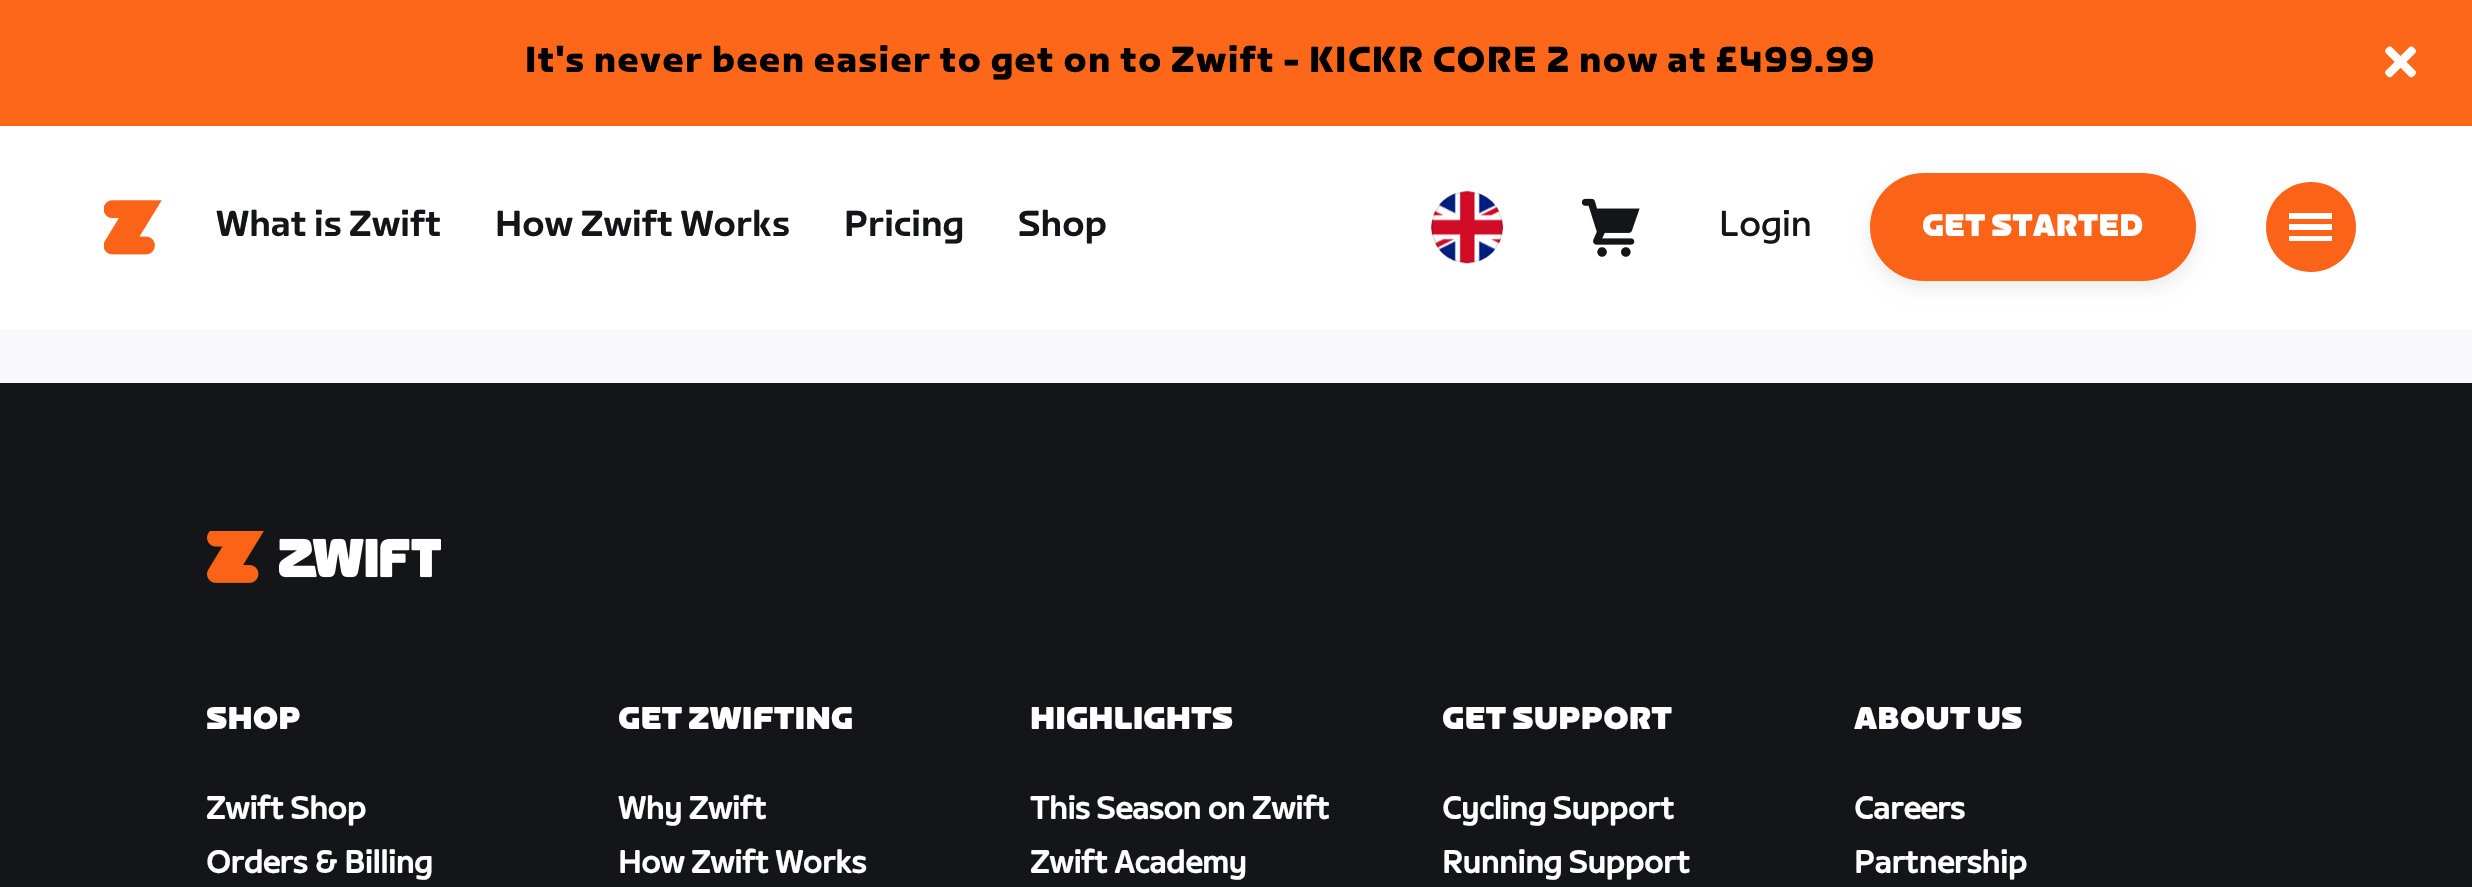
void draw(SkCanvas* canvas) {
    SkPaint paint;
    paint.setAntiAlias(true);
    auto face = [&](const char* family, int weight, float size, bool italic = false) {
        SkFontStyle style(weight, SkFontStyle::kNormal_Width,
            italic ? SkFontStyle::kItalic_Slant : SkFontStyle::kUpright_Slant);
        SkFont result(fontMgr->matchFamilyStyle(family, style), size);
        result.setSubpixel(true);
        return result;
    };
    auto write = [&](const char* s, float x, float y, const SkFont& font, SkColor color) {
        SkPaint ink(SkColor4f::FromColor(color));
        ink.setAntiAlias(true);
        canvas->drawString(s, x, y, font, ink);
    };
    auto writeSpaced = [&](const char* s, float x, float y, const SkFont& font, const SkPaint& ink, float letter, float word) {
        std::vector<SkGlyphID> glyphs(font.countText(s, strlen(s), SkTextEncoding::kUTF8));
        std::vector<float> xs(glyphs.size());
        font.textToGlyphs(s, strlen(s), SkTextEncoding::kUTF8, glyphs);
        font.getXPos(glyphs, xs, x);
        float extra = 0;
        for (size_t i = 0; i < glyphs.size(); i++) {
            xs[i] += extra;
            extra += letter + word * (glyphs[i] == font.unicharToGlyph(' '));
        }
        canvas->drawTextBlob(SkTextBlob::MakeFromPosHGlyphs(glyphs, xs, y, font), 0, 0, ink);
    };
    auto block = [&](float x, float y, float w, float h, SkColor color) {
        SkPaint ink(SkColor4f::FromColor(color));
        ink.setAntiAlias(true);
        canvas->drawRect(SkRect::MakeXYWH(x, y, w, h), ink);
    };
    auto card = [&](float x, float y, float w, float h, float radius, SkColor color) {
        SkPaint ink(SkColor4f::FromColor(color));
        ink.setAntiAlias(true);
        canvas->drawRoundRect(SkRect::MakeXYWH(x, y, w, h), radius, radius, ink);
    };
    auto paste = [&](const char* path, float x, float y, float w, float h) {
        auto image = SkImages::DeferredFromEncodedData(SkData::MakeFromFileName(path));
        canvas->drawImageRect(image, SkRect::MakeXYWH(x, y, w, h), SkSamplingOptions());
    };
    canvas->clear(SkColorSetRGB(249, 249, 251));
    block(0, 0, 2472, 126, SkColorSetRGB(252, 103, 25));
    auto kFont1 = face("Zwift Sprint", 700, 36);
    paint.setColor(SK_ColorBLACK);
    writeSpaced("It's never been easier to get on to Zwift - KICKR CORE 2 now at £499.99", 525, 72, kFont1, paint, 1.35f, 0);
    paste("pic1.png", 2385, 46, 31, 32);
    block(0, 126, 2472, 203, SK_ColorWHITE);
    paste("pic2.png", 104, 200, 58, 55);
    auto kFont2 = face("Zwift Sprint", 500, 36);
    write("What is Zwift", 216, 236, kFont2, SkColorSetRGB(20, 21, 24));
    write("How Zwift Works", 495, 236, kFont2, SkColorSetRGB(20, 21, 24));
    write("Pricing", 844, 236, kFont2, SkColorSetRGB(20, 21, 24));
    write("Shop", 1018, 236, kFont2, SkColorSetRGB(20, 21, 24));
    paste("pic3.png", 1431, 191, 72, 73);
    paste("pic4.png", 1582, 198, 58, 59);
    auto kFont3 = face("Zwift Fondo", 400, 36);
    write("Login", 1719, 236, kFont3, SkColorSetRGB(20, 21, 24));
    paint.setColor(SkColorSetARGB(20, 0, 0, 0));
    paint.setMaskFilter(SkMaskFilter::MakeBlur(kNormal_SkBlurStyle, 9));
    canvas->drawRoundRect(SkRect::MakeXYWH(1870, 182, 326, 106), 53, 53, paint);
    paint.setMaskFilter(nullptr);
    card(1870, 173, 326, 108, 54, SkColorSetRGB(251, 100, 24));
    auto kFont4 = face("Zwift Sprint", 900, 31);
    write("GET STARTED", 1922, 236, kFont4, SK_ColorWHITE);
    paint.setColor(SkColorSetRGB(251, 100, 24));
    canvas->drawPath(SkPathBuilder().moveTo(2266, 227).cubicTo(2266, 202, 2286, 182, 2311, 182).cubicTo(2336, 182, 2356, 202, 2356, 227).cubicTo(2356, 252, 2336, 272, 2311, 272).cubicTo(2286, 272, 2266, 252, 2266, 227).close().detach(), paint);
    block(2289, 213, 43, 6, SK_ColorWHITE);
    block(2289, 224, 43, 6, SK_ColorWHITE);
    block(2289, 236, 43, 5, SK_ColorWHITE);
    block(0, 383, 2472, 504, SkColorSetRGB(20, 21, 24));
    paste("pic5.png", 207, 531, 57, 52);
    paste("pic6.png", 279, 538, 162, 40);
    auto kFont5 = face("Zwift Sprint", 900, 31.5f);
    write("SHOP", 206, 729, kFont5, SK_ColorWHITE);
    auto kFont6 = face("Zwift Fondo", 700, 31.5f);
    write("Zwift Shop", 206, 819, kFont6, SK_ColorWHITE);
    write("Orders & Billing", 206, 873, kFont6, SK_ColorWHITE);
    write("GET ZWIFTING", 618, 729, kFont5, SK_ColorWHITE);
    write("Why Zwift", 618, 819, kFont6, SK_ColorWHITE);
    write("How Zwift Works", 618, 873, kFont6, SK_ColorWHITE);
    write("HIGHLIGHTS", 1030, 729, kFont5, SK_ColorWHITE);
    write("This Season on Zwift", 1030, 819, kFont6, SK_ColorWHITE);
    write("Zwift Academy", 1030, 873, kFont6, SK_ColorWHITE);
    write("GET SUPPORT", 1442, 729, kFont5, SK_ColorWHITE);
    write("Cycling Support", 1442, 819, kFont6, SK_ColorWHITE);
    write("Running Support", 1442, 873, kFont6, SK_ColorWHITE);
    write("ABOUT US", 1854, 729, kFont5, SK_ColorWHITE);
    write("Careers", 1854, 819, kFont6, SK_ColorWHITE);
    write("Partnership", 1854, 873, kFont6, SK_ColorWHITE);
}
